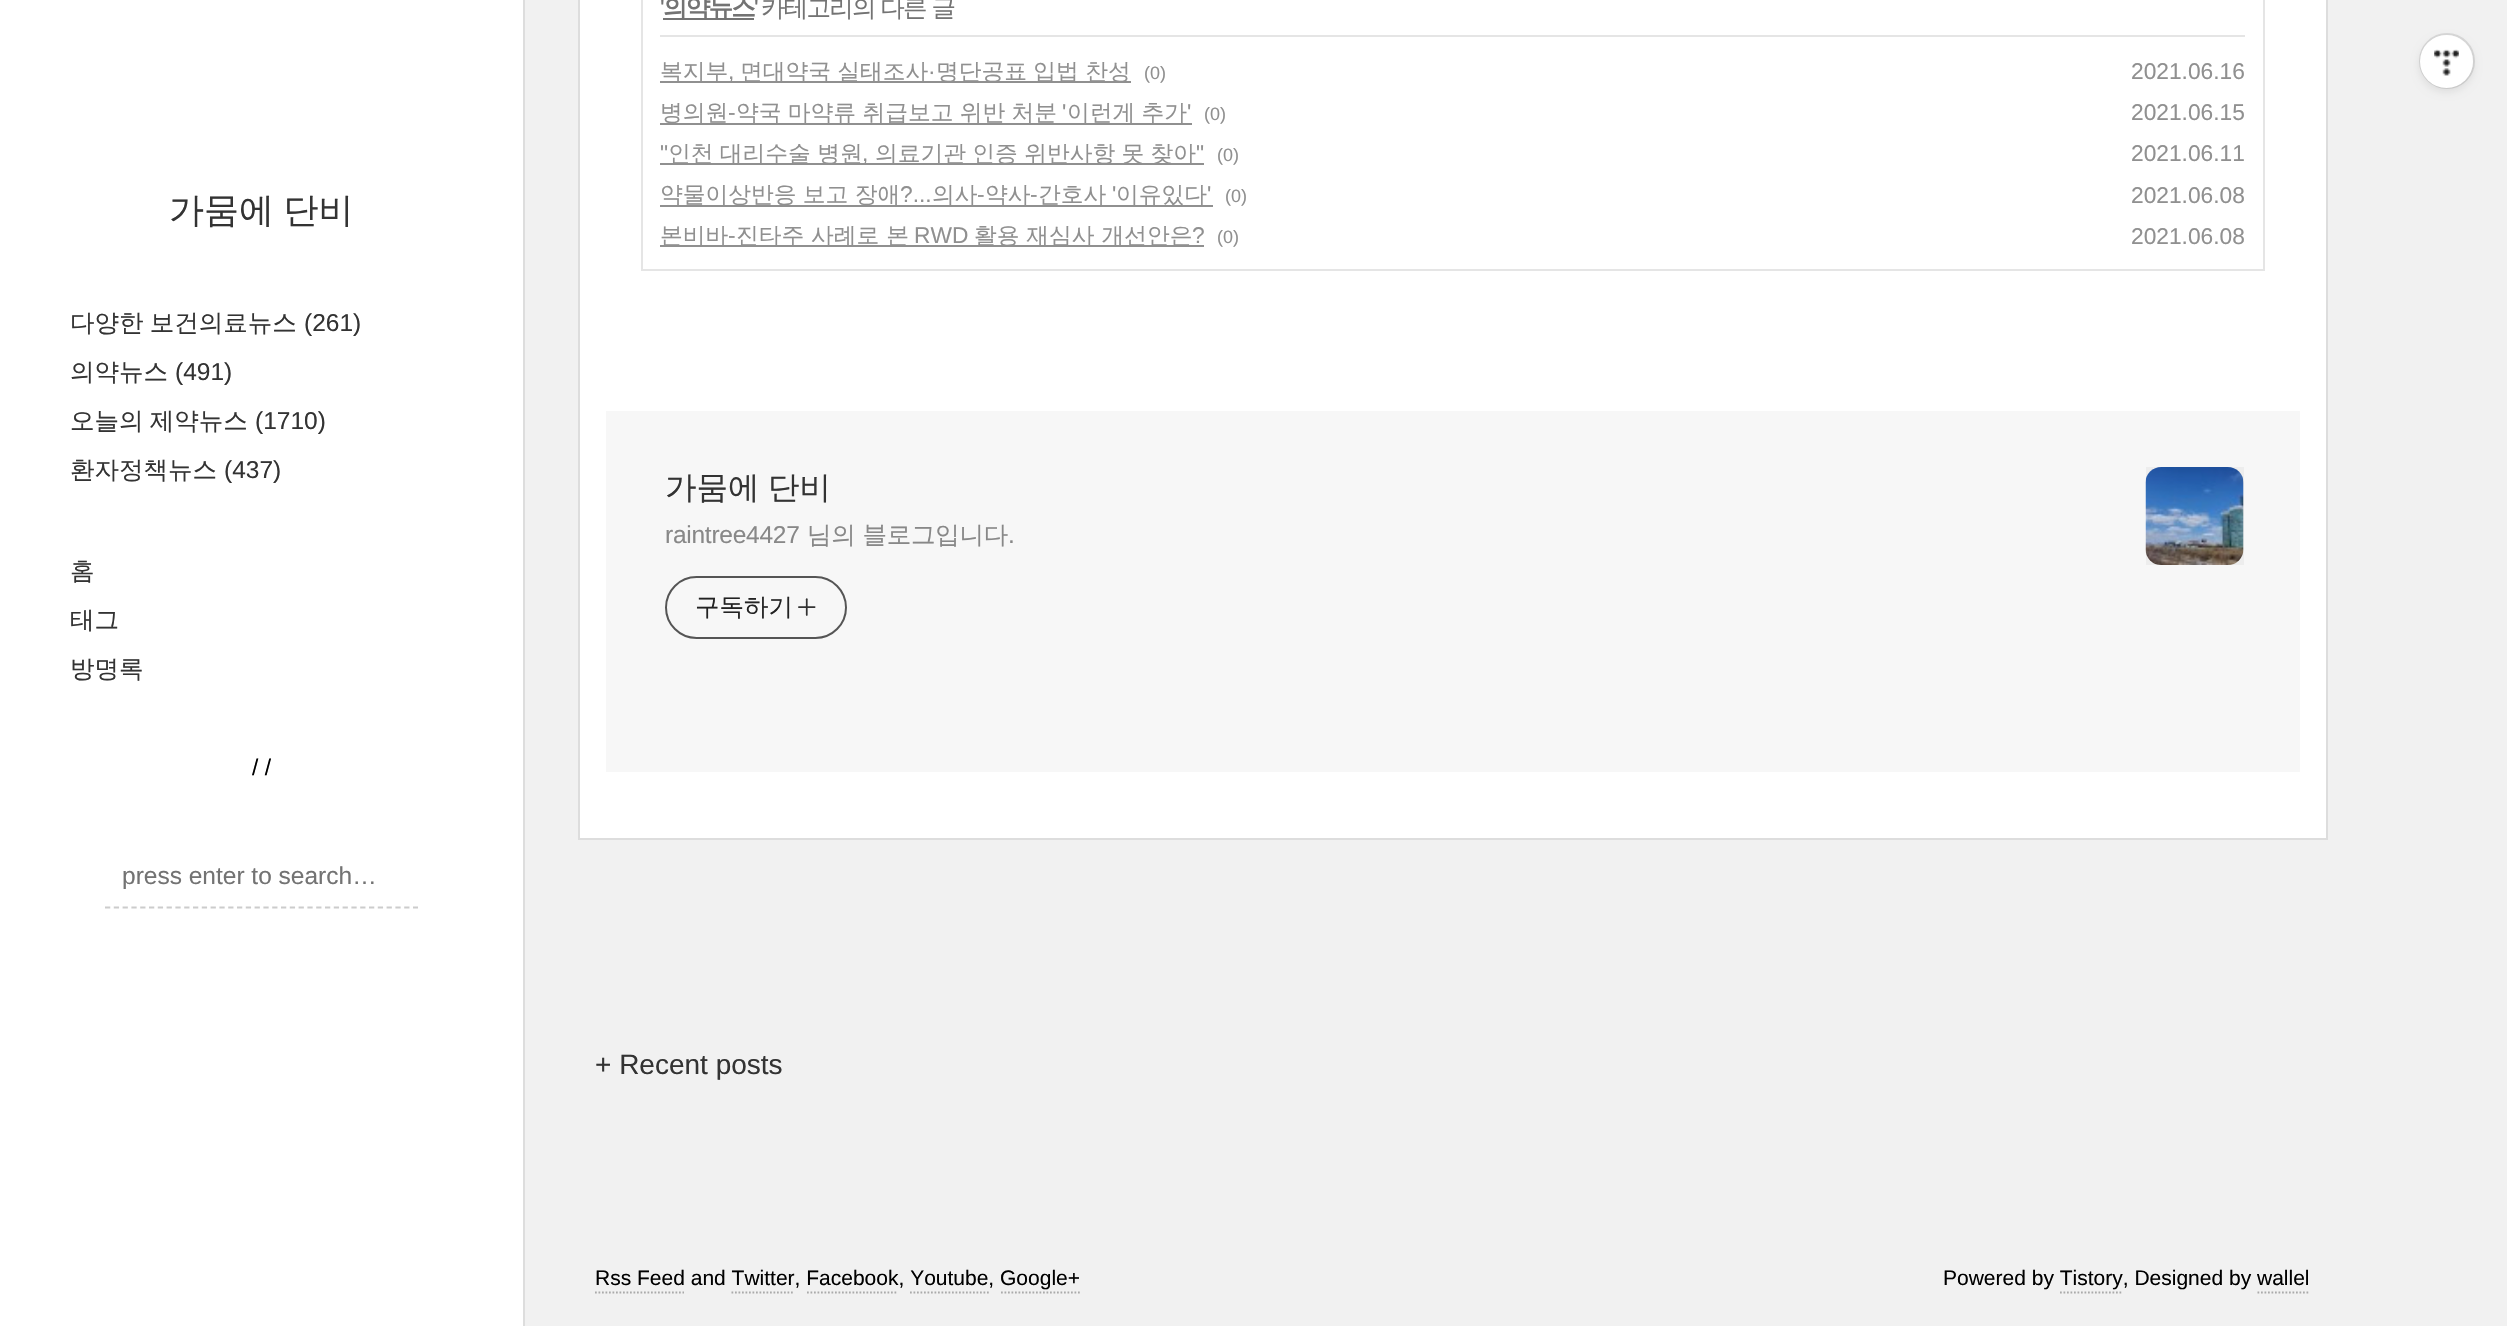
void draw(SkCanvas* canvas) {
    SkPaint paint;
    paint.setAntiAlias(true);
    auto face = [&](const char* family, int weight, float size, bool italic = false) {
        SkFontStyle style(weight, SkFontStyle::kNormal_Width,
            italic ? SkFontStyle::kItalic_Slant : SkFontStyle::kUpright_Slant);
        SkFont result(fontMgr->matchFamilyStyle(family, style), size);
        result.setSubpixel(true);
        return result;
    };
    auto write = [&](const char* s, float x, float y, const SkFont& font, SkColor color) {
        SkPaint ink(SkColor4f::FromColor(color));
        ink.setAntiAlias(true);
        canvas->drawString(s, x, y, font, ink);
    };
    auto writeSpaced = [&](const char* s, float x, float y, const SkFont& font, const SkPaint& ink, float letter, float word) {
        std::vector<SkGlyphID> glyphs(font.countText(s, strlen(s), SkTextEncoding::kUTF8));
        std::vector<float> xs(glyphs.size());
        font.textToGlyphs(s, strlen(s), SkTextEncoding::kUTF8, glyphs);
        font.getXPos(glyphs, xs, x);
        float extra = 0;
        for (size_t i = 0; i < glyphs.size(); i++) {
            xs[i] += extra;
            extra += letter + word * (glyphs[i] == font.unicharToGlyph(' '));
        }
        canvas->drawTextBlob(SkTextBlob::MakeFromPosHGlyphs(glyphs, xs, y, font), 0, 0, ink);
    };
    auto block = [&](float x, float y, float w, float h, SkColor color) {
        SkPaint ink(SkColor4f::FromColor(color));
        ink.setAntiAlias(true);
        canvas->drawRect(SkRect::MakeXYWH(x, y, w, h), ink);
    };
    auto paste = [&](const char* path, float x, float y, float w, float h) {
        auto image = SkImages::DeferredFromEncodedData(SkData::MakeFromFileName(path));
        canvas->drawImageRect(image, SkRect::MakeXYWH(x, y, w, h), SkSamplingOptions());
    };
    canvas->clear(SkColorSetRGB(241, 241, 241));
    block(0, 0, 523, 1326, SK_ColorWHITE);
    block(523, 0, 2, 1326, SkColorSetRGB(221, 221, 221));
    auto kFont1 = face("WenQuanYi Zen Hei", 500, 35);
    paint.setColor(SkColorSetRGB(51, 51, 51));
    writeSpaced("가뭄에 단비", 169, 222, kFont1, paint, 0, -1);
    auto kFont2 = face("WenQuanYi Zen Hei", 500, 24.5f);
    writeSpaced("다양한 보건의료뉴스", 70, 331, kFont2, paint, 0, -1);
    auto kFont3 = face("Liberation Sans", 400, 24.5f);
    write("(261)", 304, 331, kFont3, SkColorSetRGB(51, 51, 51));
    write("의약뉴스", 70, 380, kFont2, SkColorSetRGB(51, 51, 51));
    write("(491)", 175, 380, kFont3, SkColorSetRGB(51, 51, 51));
    writeSpaced("오늘의 제약뉴스", 70, 429, kFont2, paint, 0, -1);
    write("(1710)", 255, 429, kFont3, SkColorSetRGB(51, 51, 51));
    write("환자정책뉴스", 70, 478, kFont2, SkColorSetRGB(51, 51, 51));
    write("(437)", 224, 478, kFont3, SkColorSetRGB(51, 51, 51));
    write("홈", 70, 579, kFont2, SkColorSetRGB(51, 51, 51));
    write("태그", 70, 628, kFont2, SkColorSetRGB(51, 51, 51));
    write("방명록", 70, 677, kFont2, SkColorSetRGB(51, 51, 51));
    auto kFont4 = face("Liberation Sans", 400, 22.75f);
    write("/ /", 252, 775, kFont4, SK_ColorBLACK);
    paint.setStyle(SkPaint::kStroke_Style);
    paint.setStrokeWidth(1.8f);
    paint.setColor(SkColorSetRGB(204, 204, 204));
    paint.setPathEffect(SkDashPathEffect::Make({{5.25f, 3.55f}}, 0));
    canvas->drawPath(SkPathBuilder().moveTo(105, 907.5f).lineTo(418, 907.5f).detach(), paint);
    paint.setPathEffect(nullptr);
    write("press enter to search…", 122, 884, kFont3, SkColorSetRGB(115, 115, 115));
    paint.setStyle(SkPaint::kFill_Style);
    paint.setColor(SK_ColorWHITE);
    canvas->drawRect(SkRect::MakeXYWH(579, -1, 1748, 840), paint);
    paint.setStyle(SkPaint::kStroke_Style);
    paint.setStrokeWidth(2);
    paint.setColor(SkColorSetRGB(221, 221, 221));
    canvas->drawRect(SkRect::MakeXYWH(579, -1, 1748, 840), paint);
    paint.setColor(SkColorSetRGB(229, 229, 229));
    canvas->drawRect(SkRect::MakeXYWH(642, -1, 1622, 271), paint);
    block(660, 35, 1585, 2, SkColorSetRGB(229, 229, 229));
    paint.setStyle(SkPaint::kFill_Style);
    paint.setColor(SkColorSetRGB(115, 115, 115));
    writeSpaced("'", 660, 16, kFont3, paint, -1.75f, 0);
    block(663, 18, 91, 2, SkColorSetRGB(115, 115, 115));
    auto kFont5 = face("WenQuanYi Zen Hei", 700, 24.5f);
    writeSpaced("의약뉴스", 663, 16, kFont5, paint, -1.75f, 0);
    writeSpaced("'", 754, 16, kFont3, paint, -1.75f, 0);
    writeSpaced("카테고리의 다른 글", 761, 16, kFont2, paint, -1.75f, 0);
    block(660, 81, 471, 2, SkColorSetRGB(144, 144, 144));
    auto kFont6 = face("WenQuanYi Zen Hei", 500, 22.75f);
    write("복지부", 660, 79, kFont6, SkColorSetRGB(144, 144, 144));
    paint.setColor(SkColorSetRGB(144, 144, 144));
    writeSpaced("면대약국 실태조사", 740, 79, kFont6, paint, 0, -0.5f);
    write("·", 928, 79, kFont4, SkColorSetRGB(144, 144, 144));
    writeSpaced("명단공표 입법 찬성", 936, 79, kFont6, paint, 0, -0.5f);
    auto kFont7 = face("Liberation Sans", 400, 18);
    write("(0)", 1144, 79, kFont7, SkColorSetRGB(144, 144, 144));
    write(",", 728, 79, kFont4, SkColorSetRGB(144, 144, 144));
    write("2021.06.16", 2131, 79, kFont4, SkColorSetRGB(144, 144, 144));
    block(660, 123, 532, 2, SkColorSetRGB(144, 144, 144));
    write("병의원", 660, 120, kFont6, SkColorSetRGB(144, 144, 144));
    write("-", 728, 120, kFont4, SkColorSetRGB(144, 144, 144));
    writeSpaced("약국 마약류 취급보고 위반 처분", 736, 120, kFont6, paint, 0, -0.5f);
    write("'", 1062, 120, kFont4, SkColorSetRGB(144, 144, 144));
    writeSpaced("이런게 추가", 1067, 120, kFont6, paint, 0, -0.5f);
    write("'", 1187, 120, kFont4, SkColorSetRGB(144, 144, 144));
    write("(0)", 1204, 120, kFont7, SkColorSetRGB(144, 144, 144));
    write("2021.06.15", 2131, 120, kFont4, SkColorSetRGB(144, 144, 144));
    write("\"", 660, 161, kFont4, SkColorSetRGB(144, 144, 144));
    block(660, 163, 544, 2, SkColorSetRGB(144, 144, 144));
    writeSpaced("인천 대리수술 병원", 668, 161, kFont6, paint, 0, -0.5f);
    write(",", 862, 161, kFont4, SkColorSetRGB(144, 144, 144));
    writeSpaced("의료기관 인증 위반사항 못 찾아", 875, 161, kFont6, paint, 0, -0.5f);
    write("\"", 1196, 161, kFont4, SkColorSetRGB(144, 144, 144));
    write("(0)", 1217, 161, kFont7, SkColorSetRGB(144, 144, 144));
    write("2021.06.11", 2131, 161, kFont4, SkColorSetRGB(144, 144, 144));
    block(660, 205, 553, 2, SkColorSetRGB(144, 144, 144));
    writeSpaced("약물이상반응 보고 장애", 660, 202, kFont6, paint, 0, -0.5f);
    write("?...", 900, 202, kFont4, SkColorSetRGB(144, 144, 144));
    write("의사", 932, 202, kFont6, SkColorSetRGB(144, 144, 144));
    write("-", 977, 202, kFont4, SkColorSetRGB(144, 144, 144));
    write("약사", 985, 202, kFont6, SkColorSetRGB(144, 144, 144));
    write("-", 1030, 202, kFont4, SkColorSetRGB(144, 144, 144));
    write("간호사", 1038, 202, kFont6, SkColorSetRGB(144, 144, 144));
    write("'", 1112, 202, kFont4, SkColorSetRGB(144, 144, 144));
    write("이유있다", 1116, 202, kFont6, SkColorSetRGB(144, 144, 144));
    write("'", 1207, 202, kFont4, SkColorSetRGB(144, 144, 144));
    write("(0)", 1225, 202, kFont7, SkColorSetRGB(144, 144, 144));
    write("2021.06.08", 2131, 203, kFont4, SkColorSetRGB(144, 144, 144));
    block(660, 245, 544, 2, SkColorSetRGB(144, 144, 144));
    write("본비바", 660, 243, kFont6, SkColorSetRGB(144, 144, 144));
    write("-", 728, 243, kFont4, SkColorSetRGB(144, 144, 144));
    write("진타주 사례로 본", 736, 243, kFont6, SkColorSetRGB(144, 144, 144));
    write("RWD", 914, 243, kFont4, SkColorSetRGB(144, 144, 144));
    write("활용 재심사 개선안은", 974, 243, kFont6, SkColorSetRGB(144, 144, 144));
    write("?", 1192, 243, kFont4, SkColorSetRGB(144, 144, 144));
    write("(0)", 1217, 243, kFont7, SkColorSetRGB(144, 144, 144));
    write("2021.06.08", 2131, 244, kFont4, SkColorSetRGB(144, 144, 144));
    block(606, 411, 1694, 361, SkColorSetRGB(247, 247, 247));
    auto kFont8 = face("WenQuanYi Zen Hei", 500, 31.5f);
    paint.setColor(SkColorSetRGB(51, 51, 51));
    writeSpaced("가뭄에 단비", 665, 498, kFont8, paint, 0, -1);
    paint.setColor(SkColorSetRGB(136, 136, 136));
    writeSpaced("raintree4427", 665, 543, kFont3, paint, -0.25f, 0);
    writeSpaced("님의 블로그입니다", 807, 543, kFont2, paint, -0.25f, 0);
    writeSpaced(".", 1008, 543, kFont3, paint, -0.25f, 0);
    paint.setStyle(SkPaint::kStroke_Style);
    paint.setColor(SkColorSetRGB(85, 85, 85));
    canvas->drawRoundRect(SkRect::MakeXYWH(666, 577, 180, 61), 30.5f, 30.5f, paint);
    write("구독하기", 695, 615, kFont2, SkColorSetRGB(34, 34, 34));
    paste("pic1.png", 798, 598, 18, 18);
    paste("pic2.png", 2145, 467, 99, 98);
    block(2146, 467, 98, 98, SkColorSetARGB(10, 0, 0, 0));
    auto kFont9 = face("Liberation Sans", 400, 28);
    write("+ Recent posts", 595, 1074, kFont9, SkColorSetRGB(51, 51, 51));
    auto kFont10 = face("Liberation Sans", 400, 21);
    write("Rss Feed and Twitter, Facebook, Youtube, Google+", 595, 1285, kFont10, SK_ColorBLACK);
    paint.setStrokeWidth(1.8f);
    paint.setColor(SkColorSetRGB(170, 170, 170));
    paint.setPathEffect(SkDashPathEffect::Make({{1.75f, 1.75f}}, 0));
    canvas->drawPath(SkPathBuilder().moveTo(595, 1292.5f).lineTo(684, 1292.5f).detach(), paint);
    paint.setPathEffect(nullptr);
    paint.setPathEffect(SkDashPathEffect::Make({{1.75f, 1.75f}}, 0));
    canvas->drawPath(SkPathBuilder().moveTo(731.5f, 1292.5f).lineTo(794.5f, 1292.5f).detach(), paint);
    paint.setPathEffect(nullptr);
    paint.setPathEffect(SkDashPathEffect::Make({{1.75f, 1.75f}}, 0));
    canvas->drawPath(SkPathBuilder().moveTo(807, 1292.5f).lineTo(898, 1292.5f).detach(), paint);
    paint.setPathEffect(nullptr);
    paint.setPathEffect(SkDashPathEffect::Make({{1.75f, 1.75f}}, 0));
    canvas->drawPath(SkPathBuilder().moveTo(910, 1292.5f).lineTo(989, 1292.5f).detach(), paint);
    paint.setPathEffect(nullptr);
    paint.setPathEffect(SkDashPathEffect::Make({{1.75f, 1.75f}}, 0));
    canvas->drawPath(SkPathBuilder().moveTo(1001, 1292.5f).lineTo(1080, 1292.5f).detach(), paint);
    paint.setPathEffect(nullptr);
    write("Powered by Tistory, Designed by wallel", 1943, 1285, kFont10, SK_ColorBLACK);
    paint.setPathEffect(SkDashPathEffect::Make({{1.75f, 1.75f}}, 0));
    canvas->drawPath(SkPathBuilder().moveTo(2060, 1292.5f).lineTo(2123, 1292.5f).detach(), paint);
    paint.setPathEffect(nullptr);
    paint.setPathEffect(SkDashPathEffect::Make({{1.75f, 1.75f}}, 0));
    canvas->drawPath(SkPathBuilder().moveTo(2257.5f, 1292.5f).lineTo(2310, 1292.5f).detach(), paint);
    paint.setPathEffect(nullptr);
    paint.setStyle(SkPaint::kFill_Style);
    paint.setColor(SkColorSetARGB(26, 0, 0, 0));
    paint.setMaskFilter(SkMaskFilter::MakeBlur(kNormal_SkBlurStyle, 4.5f));
    canvas->drawRoundRect(SkRect::MakeXYWH(2420, 39, 53, 52), 26, 26, paint);
    paint.setMaskFilter(nullptr);
    paint.setStyle(SkPaint::kStroke_Style);
    paint.setStrokeWidth(2);
    canvas->drawCircle(2447, 61, 27, paint);
    paint.setStyle(SkPaint::kFill_Style);
    paint.setColor(SK_ColorWHITE);
    canvas->drawCircle(2446.5f, 61.5f, 26.5f, paint);
    paste("pic3.png", 2434, 49, 25, 27);
}
